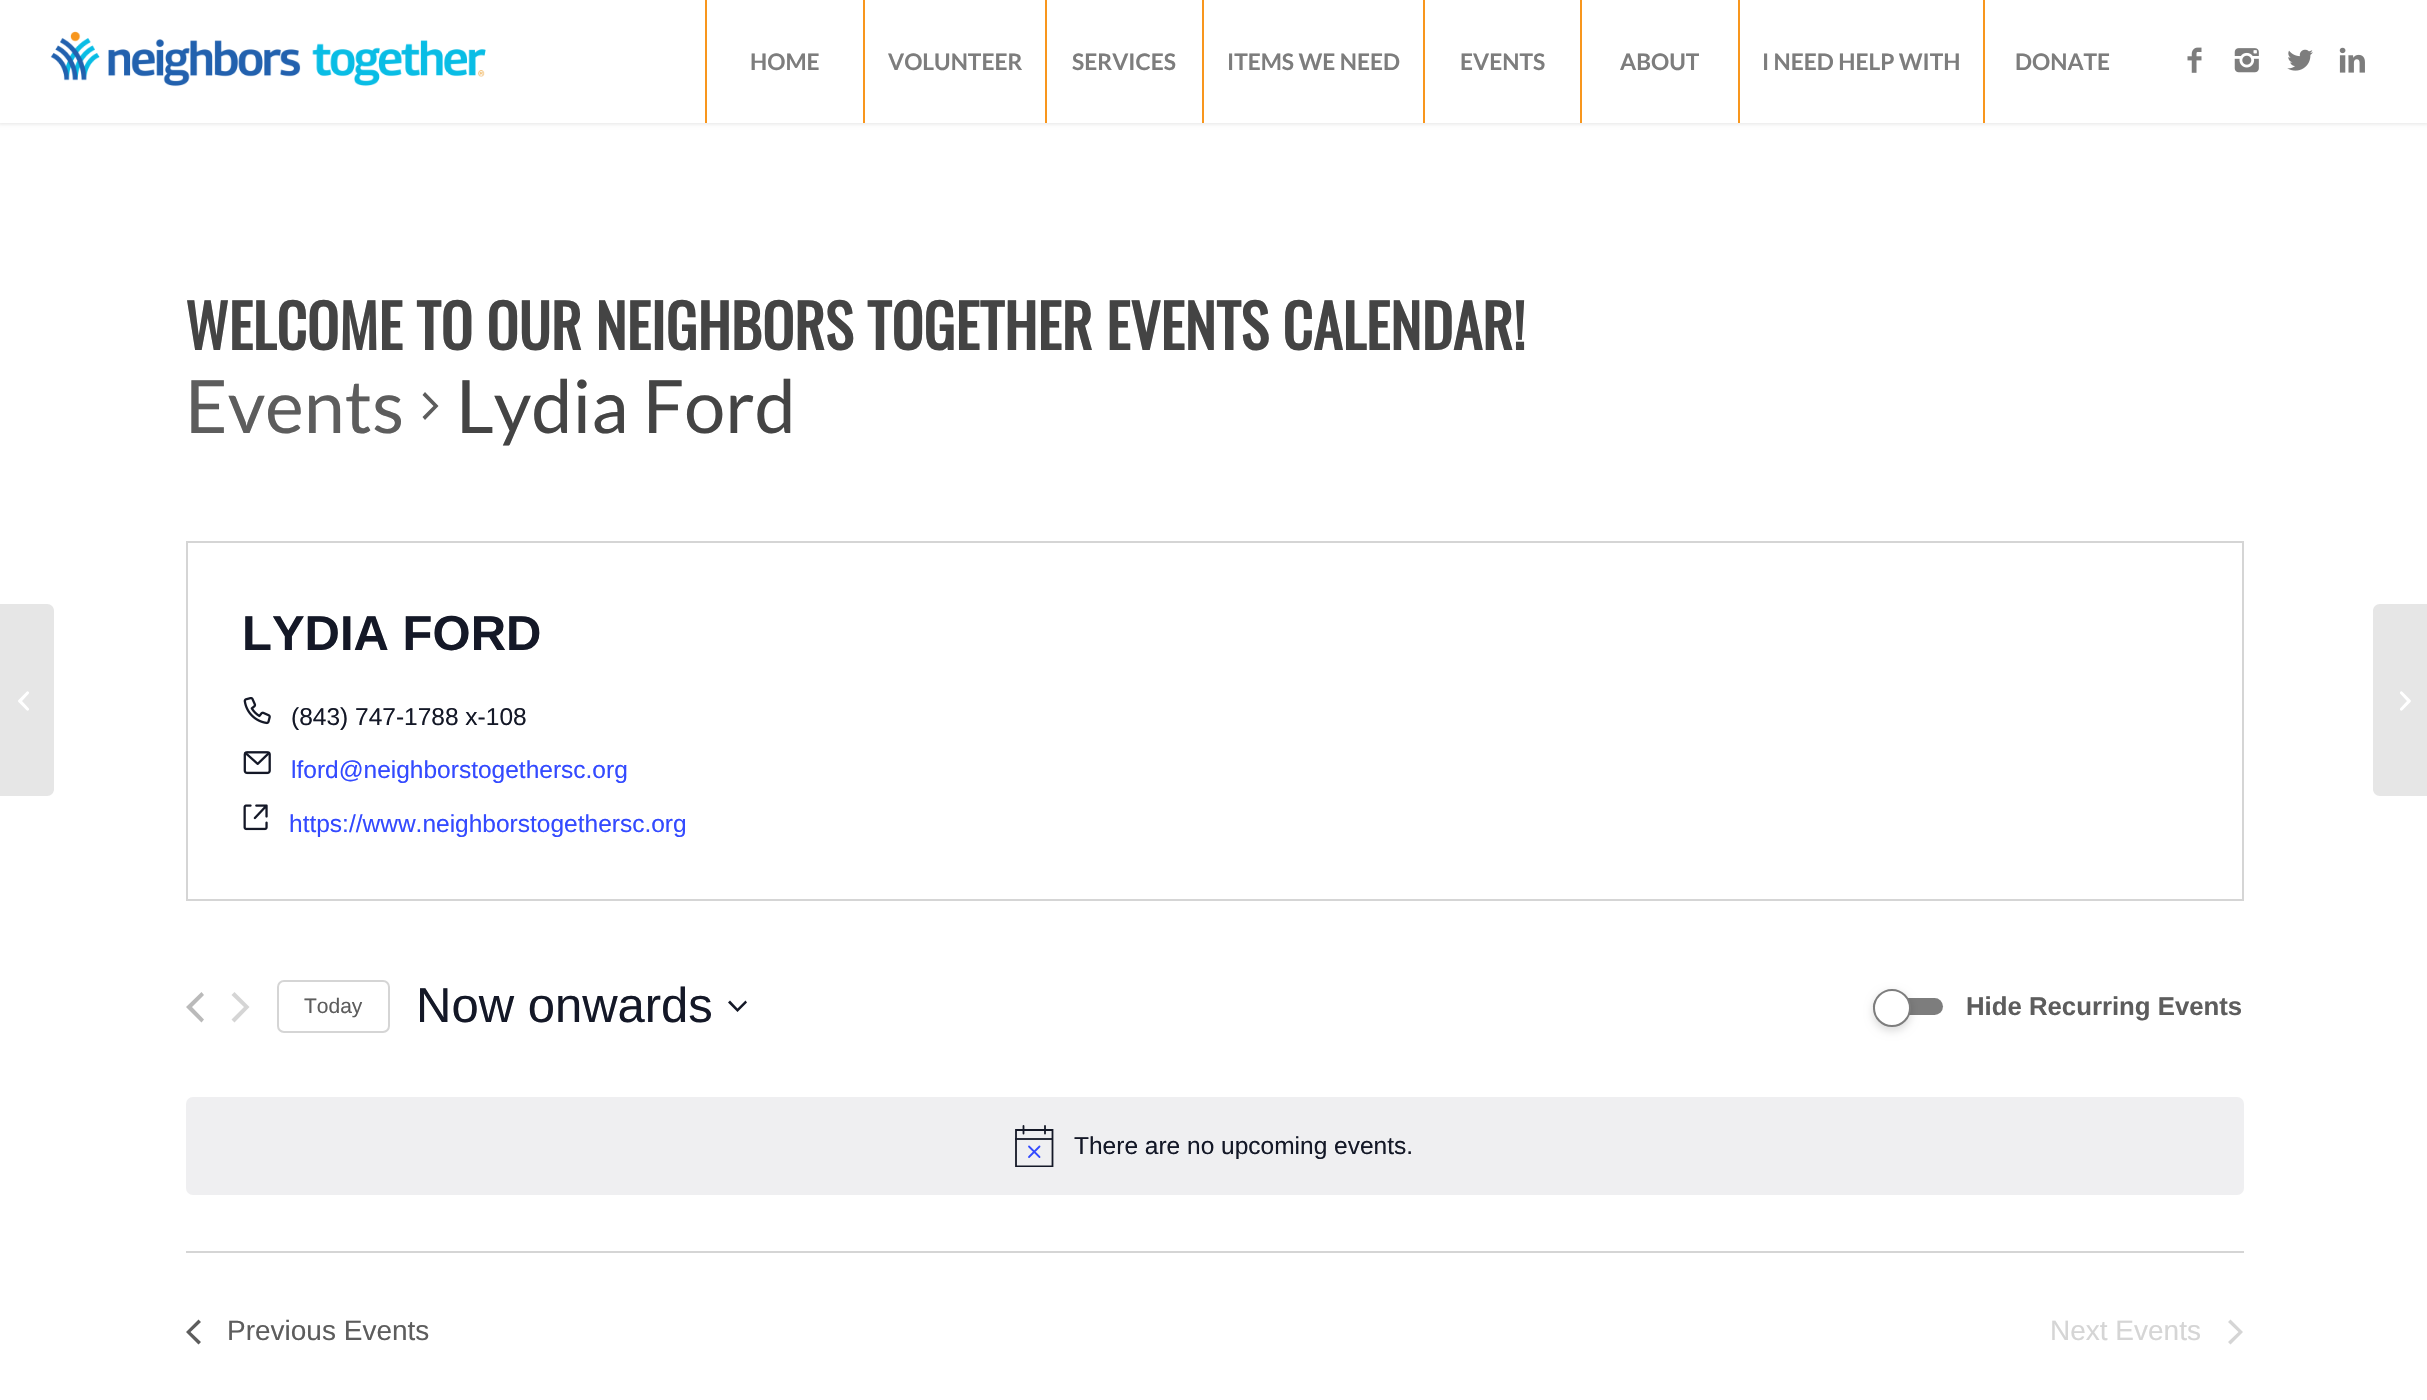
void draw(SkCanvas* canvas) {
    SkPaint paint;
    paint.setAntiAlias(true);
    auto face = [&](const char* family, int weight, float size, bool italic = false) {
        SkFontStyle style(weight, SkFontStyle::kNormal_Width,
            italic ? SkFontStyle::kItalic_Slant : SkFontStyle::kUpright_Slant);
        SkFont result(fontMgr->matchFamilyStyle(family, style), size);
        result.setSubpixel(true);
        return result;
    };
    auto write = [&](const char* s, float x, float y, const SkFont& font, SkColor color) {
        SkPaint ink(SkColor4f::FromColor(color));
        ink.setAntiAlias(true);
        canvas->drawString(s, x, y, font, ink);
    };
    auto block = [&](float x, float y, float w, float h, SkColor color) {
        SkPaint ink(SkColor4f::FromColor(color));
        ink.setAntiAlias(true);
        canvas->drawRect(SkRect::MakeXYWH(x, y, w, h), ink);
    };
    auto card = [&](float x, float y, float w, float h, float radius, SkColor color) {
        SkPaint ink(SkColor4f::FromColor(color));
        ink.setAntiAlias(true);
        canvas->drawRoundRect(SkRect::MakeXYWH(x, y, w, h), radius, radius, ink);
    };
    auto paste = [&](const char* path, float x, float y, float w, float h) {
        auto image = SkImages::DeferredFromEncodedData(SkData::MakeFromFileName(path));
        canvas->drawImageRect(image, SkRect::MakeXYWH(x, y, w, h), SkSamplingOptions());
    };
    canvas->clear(SK_ColorWHITE);
    paint.setColor(SkColorSetARGB(26, 0, 0, 0));
    paint.setMaskFilter(SkMaskFilter::MakeBlur(kNormal_SkBlurStyle, 2));
    canvas->drawRect(SkRect::MakeXYWH(-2, -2, 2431, 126), paint);
    paint.setMaskFilter(nullptr);
    block(0, 0, 2427, 123, SK_ColorWHITE);
    paste("pic1.png", 50, 31, 436, 56);
    block(705, 0, 2, 123, SkColorSetRGB(248, 150, 29));
    auto kFont1 = face("Lato", 700, 22.75f);
    write("HOME", 750, 70, kFont1, SkColorSetRGB(125, 125, 125));
    block(863, 0, 2, 123, SkColorSetRGB(248, 150, 29));
    write("VOLUNTEER", 888, 70, kFont1, SkColorSetRGB(125, 125, 125));
    block(1045, 0, 2, 123, SkColorSetRGB(248, 150, 29));
    write("SERVICES", 1072, 70, kFont1, SkColorSetRGB(125, 125, 125));
    block(1202, 0, 2, 123, SkColorSetRGB(248, 150, 29));
    write("ITEMS WE NEED", 1227, 70, kFont1, SkColorSetRGB(125, 125, 125));
    block(1423, 0, 2, 123, SkColorSetRGB(248, 150, 29));
    write("EVENTS", 1460, 70, kFont1, SkColorSetRGB(125, 125, 125));
    block(1580, 0, 2, 123, SkColorSetRGB(248, 150, 29));
    write("ABOUT", 1620, 70, kFont1, SkColorSetRGB(125, 125, 125));
    block(1738, 0, 2, 123, SkColorSetRGB(248, 150, 29));
    write("I NEED HELP WITH", 1762, 70, kFont1, SkColorSetRGB(125, 125, 125));
    block(1983, 0, 2, 123, SkColorSetRGB(248, 150, 29));
    write("DONATE", 2015, 70, kFont1, SkColorSetRGB(125, 125, 125));
    paste("pic2.png", 2187, 47, 15, 26);
    paste("pic3.png", 2234, 48, 25, 25);
    paste("pic4.png", 2287, 49, 26, 22);
    paste("pic5.png", 2339, 47, 26, 26);
    paint.setColor(SkColorSetRGB(230, 230, 230));
    canvas->drawPath(SkPathBuilder().moveTo(0, 604).lineTo(47, 604).cubicTo(51, 604, 54, 607, 54, 611).lineTo(54, 789).cubicTo(54, 793, 51, 796, 47, 796).lineTo(0, 796).close().detach(), paint);
    paste("pic6.png", 18, 691, 11, 20);
    auto kFont2 = face("Oswald", 700, 59.5f);
    write("WELCOME TO OUR NEIGHBORS TOGETHER EVENTS CALENDAR!", 185, 350, kFont2, SkColorSetRGB(68, 68, 68));
    auto kFont3 = face("Lato", 400, 73.5f);
    write("Events", 185, 433, kFont3, SkColorSetRGB(93, 93, 93));
    paint.setColor(SkColorSetRGB(93, 93, 93));
    canvas->drawPath(SkPathBuilder().moveTo(422.5f, 395).lineTo(425, 392).lineTo(438.5f, 406).lineTo(425, 420).lineTo(422.5f, 417).lineTo(433.5f, 406).close().detach(), paint);
    write("Lydia Ford", 456, 433, kFont3, SkColorSetRGB(68, 68, 68));
    paint.setStyle(SkPaint::kStroke_Style);
    paint.setStrokeWidth(2);
    paint.setColor(SkColorSetRGB(213, 213, 213));
    canvas->drawRect(SkRect::MakeXYWH(187, 542, 2056, 358), paint);
    auto kFont4 = face("Liberation Sans", 700, 49);
    write("LYDIA FORD", 242, 650, kFont4, SkColorSetRGB(20, 24, 39));
    paste("pic7.png", 243, 697, 28, 28);
    auto kFont5 = face("Liberation Sans", 400, 24.5f);
    write("(843) 747-1788 x-108", 291, 725, kFont5, SkColorSetRGB(20, 24, 39));
    paste("pic8.png", 243, 751, 28, 24);
    write("lford@neighborstogethersc.org", 291, 778, kFont5, SkColorSetRGB(51, 74, 255));
    paste("pic9.png", 243, 804, 25, 27);
    write("https://www.neighborstogethersc.org", 289, 832, kFont5, SkColorSetRGB(51, 74, 255));
    paint.setStyle(SkPaint::kFill_Style);
    paint.setColor(SkColorSetRGB(186, 186, 186));
    canvas->drawPath(SkPathBuilder().moveTo(204, 1019.5f).lineTo(201.5f, 1022.5f).lineTo(186, 1007).lineTo(201.5f, 992).lineTo(204, 995).lineTo(192, 1007).close().detach(), paint);
    paint.setColor(SkColorSetRGB(213, 213, 213));
    canvas->drawPath(SkPathBuilder().moveTo(231.5f, 995).lineTo(234.5f, 992).lineTo(249.5f, 1007).lineTo(234.5f, 1022.5f).lineTo(231.5f, 1019.5f).lineTo(244, 1007).close().detach(), paint);
    paint.setStyle(SkPaint::kStroke_Style);
    canvas->drawRoundRect(SkRect::MakeXYWH(278, 981, 111, 51), 6, 6, paint);
    auto kFont6 = face("Liberation Sans", 400, 21);
    write("Today", 304, 1013, kFont6, SkColorSetRGB(93, 93, 93));
    auto kFont7 = face("Liberation Sans", 400, 49);
    write("Now onwards", 416, 1022, kFont7, SkColorSetRGB(20, 24, 39));
    paint.setStyle(SkPaint::kFill_Style);
    paint.setColor(SkColorSetRGB(20, 24, 39));
    canvas->drawPath(SkPathBuilder(SkPathFillType::kEvenOdd).moveTo(730, 1000.5f).lineTo(737.5f, 1008.5f).lineTo(745.5f, 1000.5f).lineTo(747, 1002.5f).lineTo(737.5f, 1012).lineTo(728, 1002.5f).close().detach(), paint);
    card(1873, 998, 70, 17, 8.5f, SkColorSetRGB(125, 125, 125));
    paint.setColor(SkColorSetARGB(36, 0, 0, 0));
    paint.setMaskFilter(SkMaskFilter::MakeBlur(kNormal_SkBlurStyle, 4.5f));
    canvas->drawRoundRect(SkRect::MakeXYWH(1873, 992, 38, 39), 19, 19, paint);
    paint.setMaskFilter(nullptr);
    paint.setColor(SK_ColorWHITE);
    canvas->drawCircle(1892, 1008, 18, paint);
    paint.setStyle(SkPaint::kStroke_Style);
    paint.setColor(SkColorSetRGB(125, 125, 125));
    canvas->drawCircle(1892, 1008, 18, paint);
    auto kFont8 = face("Liberation Sans", 700, 25.75f);
    write("Hide Recurring Events", 1966, 1015, kFont8, SkColorSetRGB(93, 93, 93));
    card(186, 1097, 2058, 98, 7, SkColorSetRGB(239, 239, 241));
    canvas->save();
    canvas->clipRect(SkRect::MakeXYWH(1015, 1125, 39, 42));
    paint.setStrokeWidth(1.8f);
    paint.setColor(SkColorSetRGB(20, 24, 39));
    canvas->drawPath(SkPathBuilder().moveTo(1016, 1130).lineTo(1052.5f, 1130).lineTo(1052.5f, 1166.5f).lineTo(1016, 1166.5f).close().detach(), paint);
    canvas->restore();
    paint.setStrokeCap(SkPaint::kRound_Cap);
    paint.setColor(SkColorSetRGB(51, 74, 255));
    canvas->drawPath(SkPathBuilder().moveTo(1029, 1146.5f).lineTo(1039.5f, 1157).moveTo(1039.5f, 1146.5f).lineTo(1029, 1157).detach(), paint);
    paint.setColor(SkColorSetRGB(20, 24, 39));
    canvas->drawPath(SkPathBuilder().moveTo(1023.5f, 1126).lineTo(1023.5f, 1133.5f).moveTo(1045, 1126).lineTo(1045, 1133.5f).detach(), paint);
    block(1015, 1138, 38, 2, SkColorSetARGB(230, 20, 24, 39));
    write("There are no upcoming events.", 1074, 1154, kFont5, SkColorSetRGB(20, 24, 39));
    block(186, 1251, 2058, 2, SkColorSetRGB(213, 213, 213));
    paint.setStyle(SkPaint::kFill_Style);
    paint.setColor(SkColorSetRGB(93, 93, 93));
    canvas->drawPath(SkPathBuilder().moveTo(201, 1342).lineTo(198.5f, 1344.5f).lineTo(186, 1332).lineTo(198.5f, 1319.5f).lineTo(201, 1322).lineTo(190.5f, 1332).close().detach(), paint);
    auto kFont9 = face("Liberation Sans", 400, 28);
    write("Previous Events", 227, 1340, kFont9, SkColorSetRGB(93, 93, 93));
    write("Next Events", 2050, 1340, kFont9, SkColorSetRGB(213, 213, 213));
    paint.setColor(SkColorSetRGB(213, 213, 213));
    canvas->drawPath(SkPathBuilder().moveTo(2228, 1322).lineTo(2230.5f, 1319.5f).lineTo(2243, 1332).lineTo(2230.5f, 1344.5f).lineTo(2228, 1342).lineTo(2238.5f, 1332).close().detach(), paint);
    paint.setColor(SkColorSetRGB(230, 230, 230));
    canvas->drawPath(SkPathBuilder().moveTo(2380, 604).lineTo(2427, 604).lineTo(2427, 796).lineTo(2380, 796).cubicTo(2376, 796, 2373, 793, 2373, 789).lineTo(2373, 611).cubicTo(2373, 607, 2376, 604, 2380, 604).close().detach(), paint);
    paste("pic10.png", 2400, 691, 11, 20);
}
